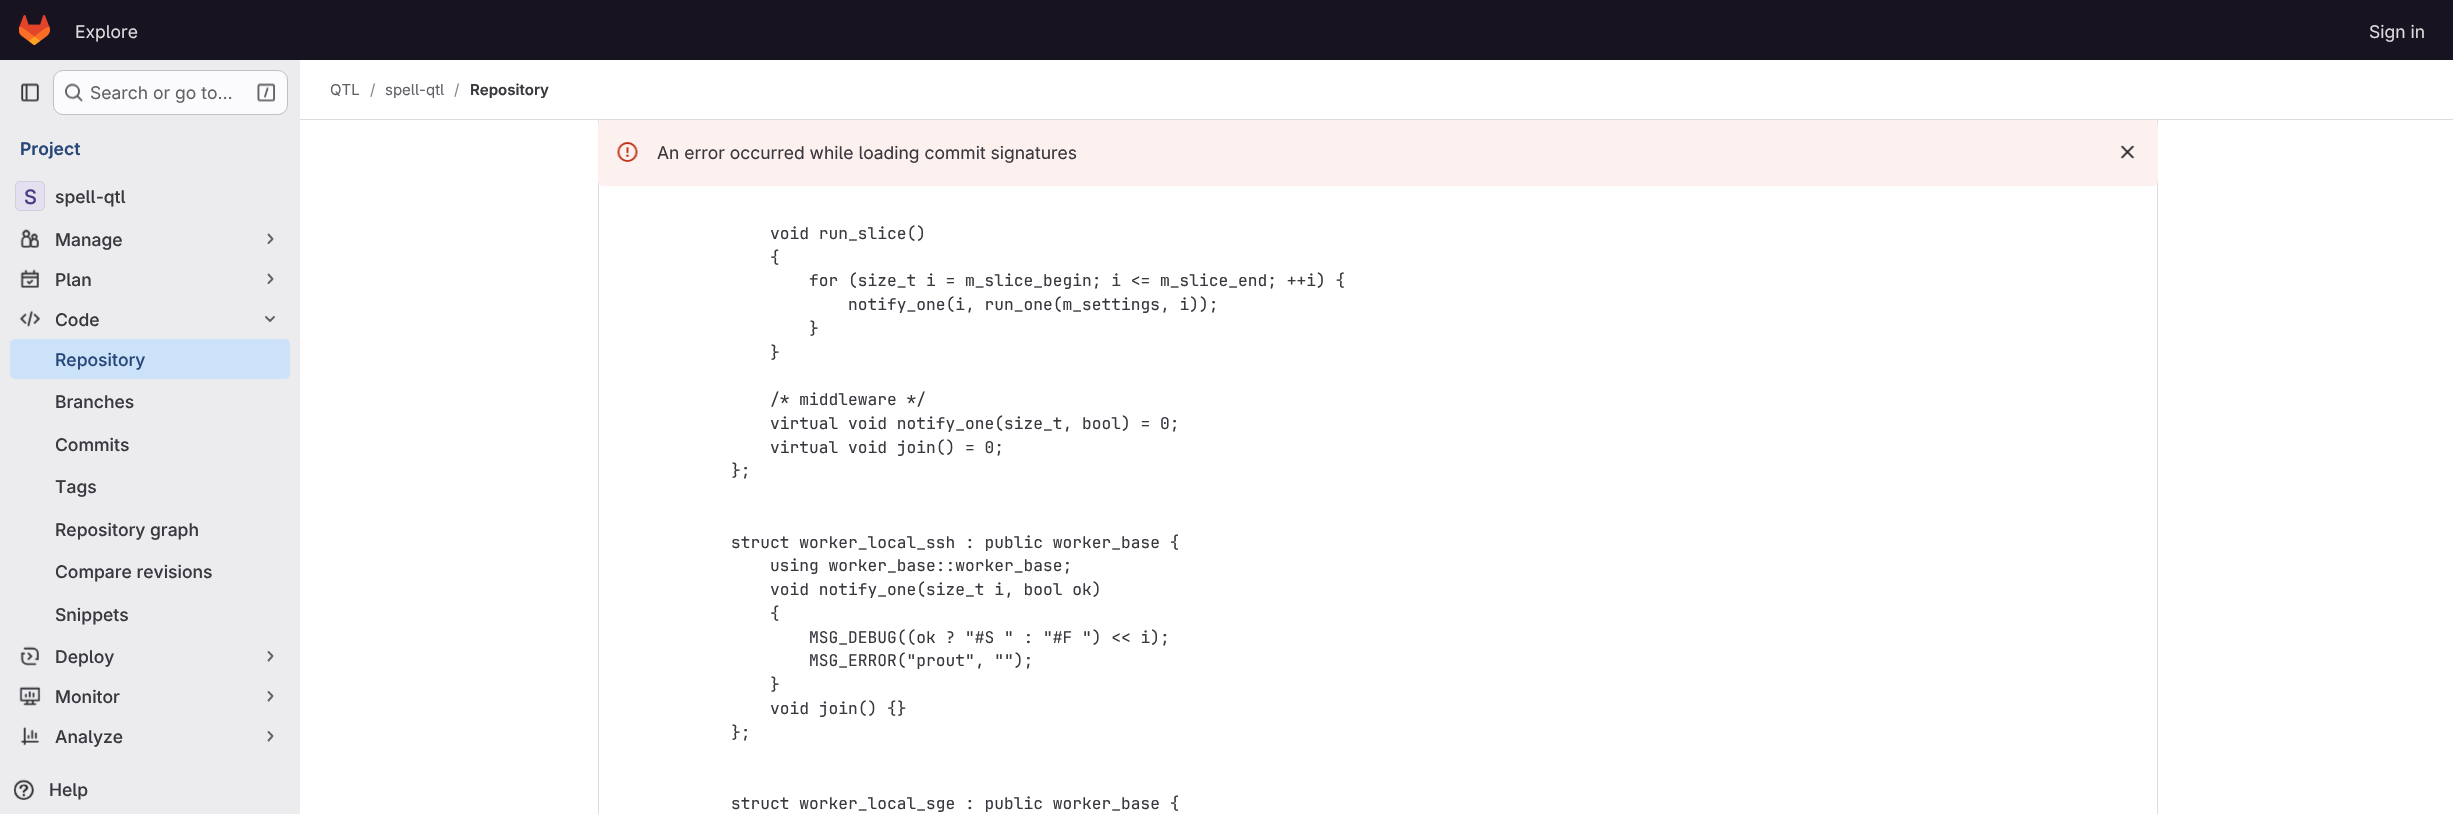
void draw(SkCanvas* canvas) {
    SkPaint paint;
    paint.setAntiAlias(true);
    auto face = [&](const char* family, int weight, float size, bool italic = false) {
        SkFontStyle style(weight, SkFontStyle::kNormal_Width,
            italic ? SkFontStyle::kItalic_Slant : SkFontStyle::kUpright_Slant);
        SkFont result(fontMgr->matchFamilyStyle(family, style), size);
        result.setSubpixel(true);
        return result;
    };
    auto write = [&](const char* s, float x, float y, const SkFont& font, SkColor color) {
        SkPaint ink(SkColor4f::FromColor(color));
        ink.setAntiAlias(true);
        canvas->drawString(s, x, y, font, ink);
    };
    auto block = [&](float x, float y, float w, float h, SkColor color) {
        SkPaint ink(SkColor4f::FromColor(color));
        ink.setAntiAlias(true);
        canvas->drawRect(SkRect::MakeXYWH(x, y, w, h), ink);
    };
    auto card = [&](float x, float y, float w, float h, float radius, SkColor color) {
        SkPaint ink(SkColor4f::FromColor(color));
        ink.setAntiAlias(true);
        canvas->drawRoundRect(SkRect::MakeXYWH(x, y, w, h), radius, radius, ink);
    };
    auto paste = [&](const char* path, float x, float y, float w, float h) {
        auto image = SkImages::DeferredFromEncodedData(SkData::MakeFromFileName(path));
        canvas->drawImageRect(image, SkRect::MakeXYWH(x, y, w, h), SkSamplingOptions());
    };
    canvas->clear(SK_ColorWHITE);
    paint.setStyle(SkPaint::kStroke_Style);
    paint.setStrokeWidth(1);
    paint.setColor(SkColorSetRGB(220, 220, 222));
    canvas->drawRect(SkRect::MakeXYWH(598.5f, -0.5f, 1559, 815), paint);
    block(0, 0, 2453, 60, SkColorSetRGB(23, 19, 33));
    paste("pic1.png", 19, 15, 31, 30);
    auto kFont1 = face("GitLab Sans", 400, 17.5f);
    write("Explore", 75, 38, kFont1, SkColorSetRGB(220, 220, 222));
    write("Sign in", 2369, 38, kFont1, SkColorSetRGB(220, 220, 222));
    block(0, 60, 300, 754, SkColorSetRGB(236, 236, 239));
    paste("pic2.png", 21, 83, 18, 19);
    card(53, 70, 235, 45, 10, SkColorSetRGB(251, 250, 253));
    paint.setColor(SkColorSetARGB(61, 5, 5, 6));
    canvas->drawRoundRect(SkRect::MakeXYWH(53.5f, 70.5f, 234, 44), 9.5f, 9.5f, paint);
    paste("pic3.png", 65, 83, 18, 19);
    write("Search or go to…", 90, 99, kFont1, SkColorSetRGB(98, 97, 104));
    paste("pic4.png", 257, 83, 18, 19);
    auto kFont2 = face("GitLab Sans", 600, 17.5f);
    write("Project", 20, 155, kFont2, SkColorSetRGB(40, 71, 121));
    card(15, 181, 30, 30, 5, SkColorSetRGB(228, 224, 240));
    paint.setColor(SkColorSetARGB(20, 5, 5, 6));
    canvas->drawRoundRect(SkRect::MakeXYWH(15.5f, 181.5f, 29, 29), 4.5f, 4.5f, paint);
    auto kFont3 = face("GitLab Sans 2", 500, 20);
    write("S", 24, 204, kFont3, SkColorSetRGB(73, 60, 131));
    auto kFont4 = face("GitLab Sans", 500, 17.5f);
    write("spell-qtl", 55, 203, kFont4, SkColorSetRGB(58, 56, 63));
    paste("pic5.png", 20, 229, 19, 19);
    write("Manage", 55, 246, kFont4, SkColorSetRGB(58, 56, 63));
    paint.setStrokeWidth(1.9f);
    paint.setStrokeCap(SkPaint::kRound_Cap);
    paint.setStrokeJoin(SkPaint::kRound_Join);
    paint.setColor(SkColorSetRGB(98, 97, 104));
    canvas->drawPath(SkPathBuilder().moveTo(268.5f, 234.5f).lineTo(272.5f, 239).lineTo(268.5f, 243).detach(), paint);
    paste("pic6.png", 20, 269, 19, 19);
    write("Plan", 55, 286, kFont4, SkColorSetRGB(58, 56, 63));
    canvas->drawPath(SkPathBuilder().moveTo(268.5f, 274.5f).lineTo(272.5f, 279).lineTo(268.5f, 283).detach(), paint);
    paste("pic7.png", 19, 310, 21, 17);
    write("Code", 55, 326, kFont4, SkColorSetRGB(58, 56, 63));
    canvas->drawPath(SkPathBuilder().moveTo(274, 317).lineTo(270, 321).lineTo(266, 317).detach(), paint);
    card(10, 339, 280, 40, 5, SkColorSetRGB(203, 226, 249));
    write("Repository", 55, 366, kFont4, SkColorSetRGB(40, 71, 121));
    write("Branches", 55, 408, kFont4, SkColorSetRGB(58, 56, 63));
    write("Commits", 55, 451, kFont4, SkColorSetRGB(58, 56, 63));
    write("Tags", 55, 493, kFont4, SkColorSetRGB(58, 56, 63));
    write("Repository graph", 55, 536, kFont4, SkColorSetRGB(58, 56, 63));
    write("Compare revisions", 55, 578, kFont4, SkColorSetRGB(58, 56, 63));
    write("Snippets", 55, 621, kFont4, SkColorSetRGB(58, 56, 63));
    paste("pic8.png", 20, 646, 19, 20);
    write("Deploy", 55, 663, kFont4, SkColorSetRGB(58, 56, 63));
    canvas->drawPath(SkPathBuilder().moveTo(268.5f, 652).lineTo(272.5f, 656).lineTo(268.5f, 660.5f).detach(), paint);
    paste("pic9.png", 19, 686, 22, 20);
    write("Monitor", 55, 703, kFont4, SkColorSetRGB(58, 56, 63));
    canvas->drawPath(SkPathBuilder().moveTo(268.5f, 692).lineTo(272.5f, 696).lineTo(268.5f, 700.5f).detach(), paint);
    paste("pic10.png", 20, 726, 19, 20);
    write("Analyze", 55, 743, kFont4, SkColorSetRGB(58, 56, 63));
    canvas->drawPath(SkPathBuilder().moveTo(268.5f, 732).lineTo(272.5f, 736).lineTo(268.5f, 740.5f).detach(), paint);
    paste("pic11.png", 14, 779, 20, 22);
    write("Help", 49, 796, kFont4, SkColorSetRGB(58, 56, 63));
    block(598, 60, 1560, 59, SkColorSetARGB(235, 255, 255, 255));
    block(300, 119, 2153, 1, SkColorSetRGB(220, 220, 222));
    auto kFont5 = face("GitLab Sans", 400, 15);
    write("QTL", 330, 95, kFont5, SkColorSetRGB(98, 97, 104));
    write("/", 370, 95, kFont5, SkColorSetRGB(137, 136, 141));
    write("spell-qtl", 385, 95, kFont5, SkColorSetRGB(98, 97, 104));
    write("/", 454, 95, kFont5, SkColorSetRGB(137, 136, 141));
    auto kFont6 = face("GitLab Sans", 600, 15);
    write("Repository", 470, 95, kFont6, SkColorSetRGB(58, 56, 63));
    card(598, 120, 1560, 66, 5, SkColorSetRGB(252, 241, 239));
    paste("pic12.png", 617, 142, 21, 20);
    write("An error occurred while loading commit signatures", 657, 159, kFont1, SkColorSetRGB(58, 56, 63));
    paste("pic13.png", 2120, 145, 15, 14);
    auto kFont7 = face("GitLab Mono", 400, 16.25f);
    write("void run_slice()", 770, 239, kFont7, SkColorSetRGB(58, 56, 63));
    write("{", 770, 263, kFont7, SkColorSetRGB(58, 56, 63));
    write("for (size_t i = m_slice_begin; i <= m_slice_end; ++i) {", 809, 286, kFont7, SkColorSetRGB(58, 56, 63));
    write("notify_one(i, run_one(m_settings, i));", 848, 310, kFont7, SkColorSetRGB(58, 56, 63));
    write("}", 809, 334, kFont7, SkColorSetRGB(58, 56, 63));
    write("}", 770, 358, kFont7, SkColorSetRGB(58, 56, 63));
    write("/* middleware */", 770, 405, kFont7, SkColorSetRGB(58, 56, 63));
    write("virtual void notify_one(size_t, bool) = 0;", 770, 429, kFont7, SkColorSetRGB(58, 56, 63));
    write("virtual void join() = 0;", 770, 453, kFont7, SkColorSetRGB(58, 56, 63));
    write("};", 731, 476, kFont7, SkColorSetRGB(58, 56, 63));
    write("struct worker_local_ssh : public worker_base {", 731, 548, kFont7, SkColorSetRGB(58, 56, 63));
    write("using worker_base::worker_base;", 770, 571, kFont7, SkColorSetRGB(58, 56, 63));
    write("void notify_one(size_t i, bool ok)", 770, 595, kFont7, SkColorSetRGB(58, 56, 63));
    write("{", 770, 619, kFont7, SkColorSetRGB(58, 56, 63));
    write("MSG_DEBUG((ok ? \"#S \" : \"#F \") << i);", 809, 643, kFont7, SkColorSetRGB(58, 56, 63));
    write("MSG_ERROR(\"prout\", \"\");", 809, 666, kFont7, SkColorSetRGB(58, 56, 63));
    write("}", 770, 690, kFont7, SkColorSetRGB(58, 56, 63));
    write("void join() {}", 770, 714, kFont7, SkColorSetRGB(58, 56, 63));
    write("};", 731, 738, kFont7, SkColorSetRGB(58, 56, 63));
    write("struct worker_local_sge : public worker_base {", 731, 809, kFont7, SkColorSetRGB(58, 56, 63));
}
